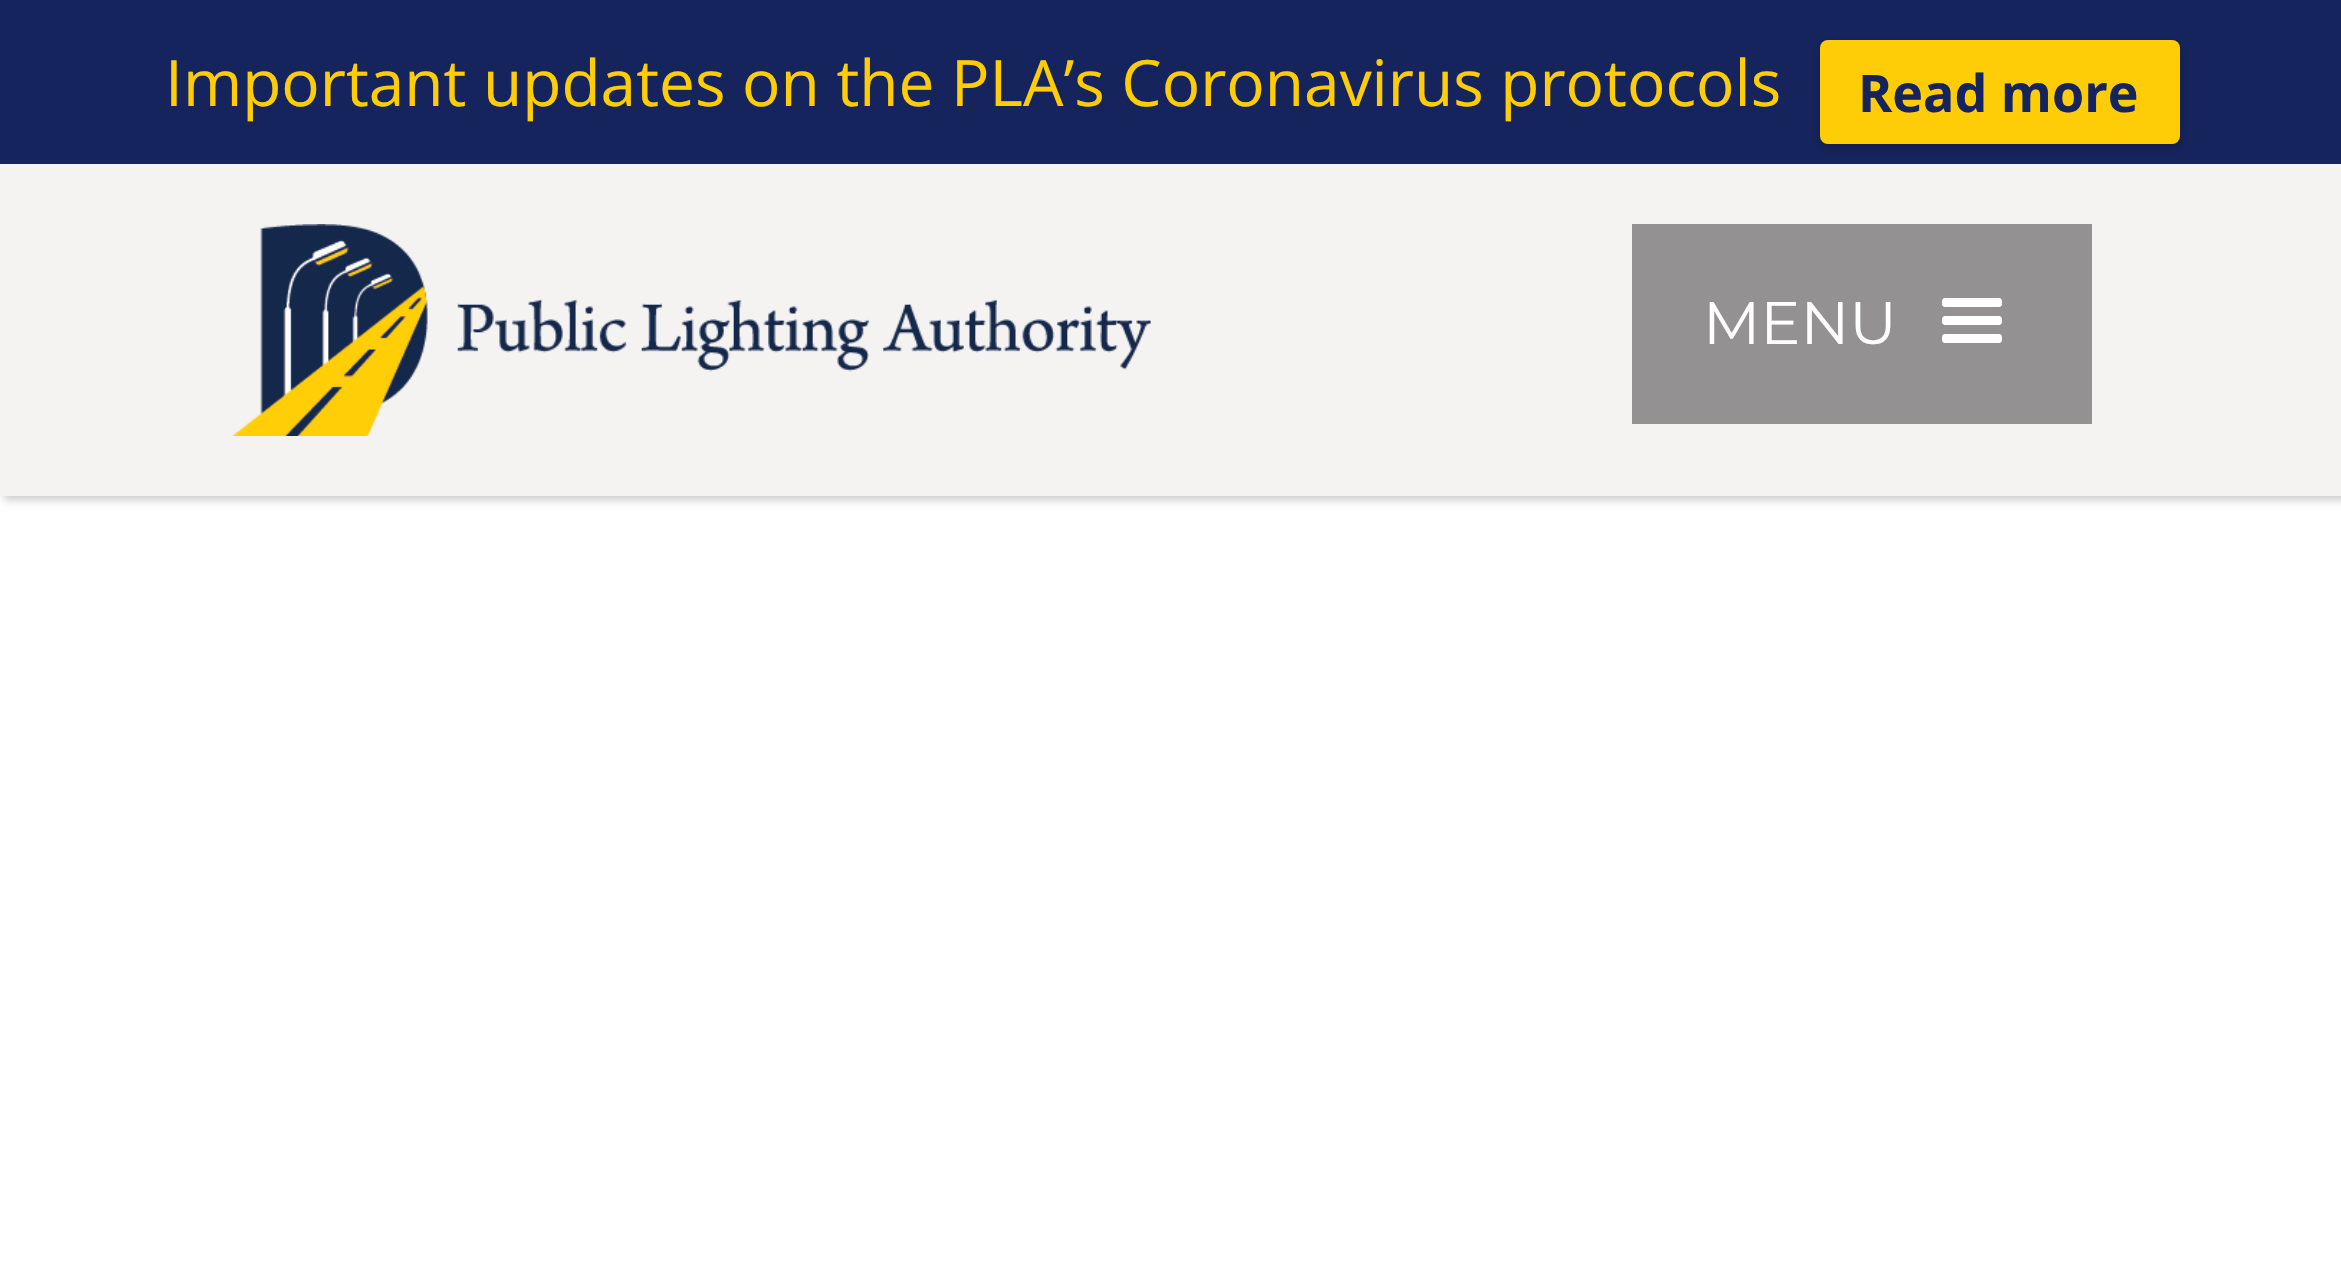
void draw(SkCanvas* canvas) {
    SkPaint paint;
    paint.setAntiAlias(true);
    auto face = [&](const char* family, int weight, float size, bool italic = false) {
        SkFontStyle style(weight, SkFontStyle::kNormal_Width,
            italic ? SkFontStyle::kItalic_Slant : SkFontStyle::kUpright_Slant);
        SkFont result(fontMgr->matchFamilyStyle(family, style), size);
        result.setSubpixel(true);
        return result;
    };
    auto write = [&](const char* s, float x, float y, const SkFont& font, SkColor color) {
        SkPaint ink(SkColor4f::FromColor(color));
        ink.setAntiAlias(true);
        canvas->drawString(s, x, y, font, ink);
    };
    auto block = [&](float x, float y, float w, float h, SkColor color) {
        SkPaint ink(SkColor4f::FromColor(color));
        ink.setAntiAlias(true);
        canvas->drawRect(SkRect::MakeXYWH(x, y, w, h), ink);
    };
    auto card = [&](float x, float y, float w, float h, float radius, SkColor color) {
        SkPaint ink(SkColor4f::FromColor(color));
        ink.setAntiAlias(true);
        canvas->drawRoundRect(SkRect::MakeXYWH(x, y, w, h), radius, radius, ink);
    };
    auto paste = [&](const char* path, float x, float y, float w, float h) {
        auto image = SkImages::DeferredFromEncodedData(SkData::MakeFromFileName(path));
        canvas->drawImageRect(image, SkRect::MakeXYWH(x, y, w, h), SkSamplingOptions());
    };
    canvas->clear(SK_ColorWHITE);
    paint.setColor(SkColorSetARGB(51, 0, 0, 0));
    paint.setMaskFilter(SkMaskFilter::MakeBlur(kNormal_SkBlurStyle, 4));
    canvas->drawRect(SkRect::MakeXYWH(4, 168, 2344, 332), paint);
    paint.setMaskFilter(nullptr);
    block(0, 0, 2341, 164, SkColorSetRGB(21, 36, 92));
    auto kFont1 = face("Open Sans", 400, 64);
    write("Important updates on the PLA’s Coronavirus protocols", 165, 106, kFont1, SkColorSetRGB(255, 205, 7));
    paint.setMaskFilter(SkMaskFilter::MakeBlur(kNormal_SkBlurStyle, 4));
    canvas->drawRoundRect(SkRect::MakeXYWH(1820, 44, 360, 104), 8, 8, paint);
    paint.setMaskFilter(nullptr);
    card(1820, 40, 360, 104, 8, SkColorSetRGB(255, 205, 7));
    auto kFont2 = face("Open Sans", 700, 52);
    write("Read more", 1858, 112, kFont2, SkColorSetRGB(21, 36, 92));
    block(0, 164, 2341, 332, SkColorSetRGB(245, 242, 242));
    paste("pic1.png", 232, 224, 919, 212);
    block(1632, 224, 460, 200, SkColorSetRGB(147, 145, 145));
    auto kFont3 = face("Montserrat", 400, 60);
    write("MENU", 1703, 344, kFont3, SK_ColorWHITE);
    paste("pic2.png", 1942, 298, 60, 45);
}
